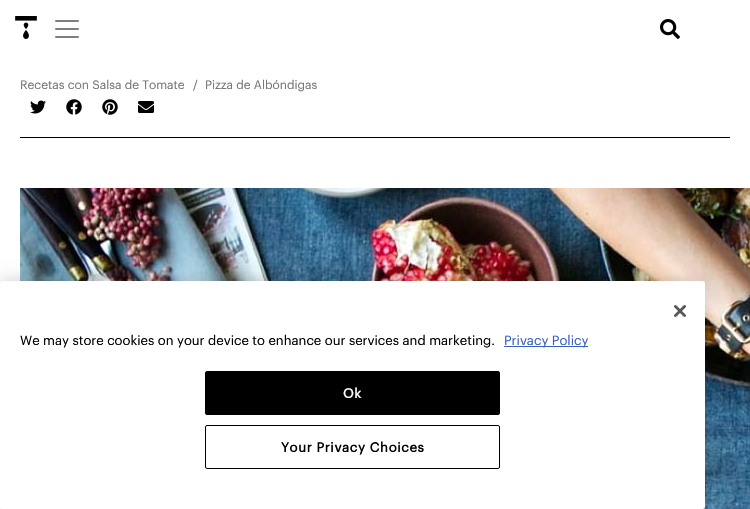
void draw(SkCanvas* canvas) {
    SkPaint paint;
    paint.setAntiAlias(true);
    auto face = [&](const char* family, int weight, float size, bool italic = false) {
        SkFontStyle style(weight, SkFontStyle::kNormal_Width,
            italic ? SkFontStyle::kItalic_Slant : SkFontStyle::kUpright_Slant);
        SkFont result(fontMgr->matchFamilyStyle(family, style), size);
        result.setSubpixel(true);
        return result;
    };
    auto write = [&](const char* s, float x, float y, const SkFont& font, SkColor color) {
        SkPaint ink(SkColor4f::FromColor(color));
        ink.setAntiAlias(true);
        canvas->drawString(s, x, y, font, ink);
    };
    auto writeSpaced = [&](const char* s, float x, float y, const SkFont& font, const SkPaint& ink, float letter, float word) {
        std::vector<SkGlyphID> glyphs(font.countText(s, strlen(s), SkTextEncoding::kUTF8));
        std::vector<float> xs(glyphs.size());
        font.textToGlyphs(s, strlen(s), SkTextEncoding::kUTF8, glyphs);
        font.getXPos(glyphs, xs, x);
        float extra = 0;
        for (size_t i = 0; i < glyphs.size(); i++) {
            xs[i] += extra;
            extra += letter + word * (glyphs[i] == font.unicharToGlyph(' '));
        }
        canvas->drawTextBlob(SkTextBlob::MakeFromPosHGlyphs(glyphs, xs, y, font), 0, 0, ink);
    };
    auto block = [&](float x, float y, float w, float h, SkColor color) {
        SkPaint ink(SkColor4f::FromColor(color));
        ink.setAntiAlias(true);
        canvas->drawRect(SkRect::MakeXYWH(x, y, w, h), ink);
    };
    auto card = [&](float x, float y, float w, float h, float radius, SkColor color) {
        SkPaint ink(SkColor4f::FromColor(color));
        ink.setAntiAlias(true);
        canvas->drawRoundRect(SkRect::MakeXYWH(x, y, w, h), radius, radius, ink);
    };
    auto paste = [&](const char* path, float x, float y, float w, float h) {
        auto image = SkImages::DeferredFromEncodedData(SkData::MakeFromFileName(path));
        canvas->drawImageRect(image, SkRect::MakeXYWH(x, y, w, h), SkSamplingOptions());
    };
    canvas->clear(SK_ColorWHITE);
    paste("pic1.png", 15, 16, 22, 23);
    paste("pic2.png", 55, 20, 24, 18);
    paste("pic3.png", 660, 19, 20, 20);
    block(20, 137, 710, 1, SK_ColorBLACK);
    auto kFont1 = face("Graphik", 400, 12);
    write("Recetas con Salsa de Tomate", 20, 89, kFont1, SkColorSetRGB(118, 118, 118));
    write("/", 193, 89, kFont1, SkColorSetRGB(118, 118, 118));
    write("Pizza de Albóndigas", 205, 89, kFont1, SkColorSetRGB(118, 118, 118));
    paste("pic4.png", 30, 100, 16, 14);
    paste("pic5.png", 66, 99, 16, 16);
    paste("pic6.png", 102, 99, 16, 16);
    paste("pic7.png", 138, 101, 16, 12);
    paste("pic8.png", 20, 188, 730, 321);
    paint.setColor(SkColorSetARGB(51, 0, 0, 0));
    paint.setMaskFilter(SkMaskFilter::MakeBlur(kNormal_SkBlurStyle, 9));
    canvas->drawRoundRect(SkRect::MakeXYWH(0, 281, 705, 228), 2.5f, 2.5f, paint);
    paint.setMaskFilter(nullptr);
    card(0, 281, 705, 228, 2.5f, SK_ColorWHITE);
    paste("pic9.png", 674, 305, 12, 12);
    auto kFont2 = face("Graphik", 400, 13.1f);
    write("We may store cookies on your device to enhance our services and marketing.", 20, 345, kFont2, SK_ColorBLACK);
    block(504, 346, 84, 1, SkColorSetRGB(56, 96, 190));
    write("Privacy Policy", 504, 345, kFont2, SkColorSetRGB(56, 96, 190));
    paint.setColor(SK_ColorBLACK);
    canvas->drawRoundRect(SkRect::MakeXYWH(205.5f, 371.5f, 294, 43), 1.5f, 1.5f, paint);
    paint.setStyle(SkPaint::kStroke_Style);
    paint.setStrokeWidth(1);
    canvas->drawRoundRect(SkRect::MakeXYWH(205.5f, 371.5f, 294, 43), 1.5f, 1.5f, paint);
    auto kFont3 = face("Graphik", 700, 13.1f);
    paint.setStyle(SkPaint::kFill_Style);
    paint.setColor(SK_ColorWHITE);
    writeSpaced("Ok", 343, 398, kFont3, paint, 0.7f, 0);
    paint.setStyle(SkPaint::kStroke_Style);
    paint.setColor(SK_ColorBLACK);
    canvas->drawRoundRect(SkRect::MakeXYWH(205.5f, 425.5f, 294, 43), 1.5f, 1.5f, paint);
    paint.setStyle(SkPaint::kFill_Style);
    writeSpaced("Your Privacy Choices", 281, 452, kFont3, paint, 0.7f, 0);
}
